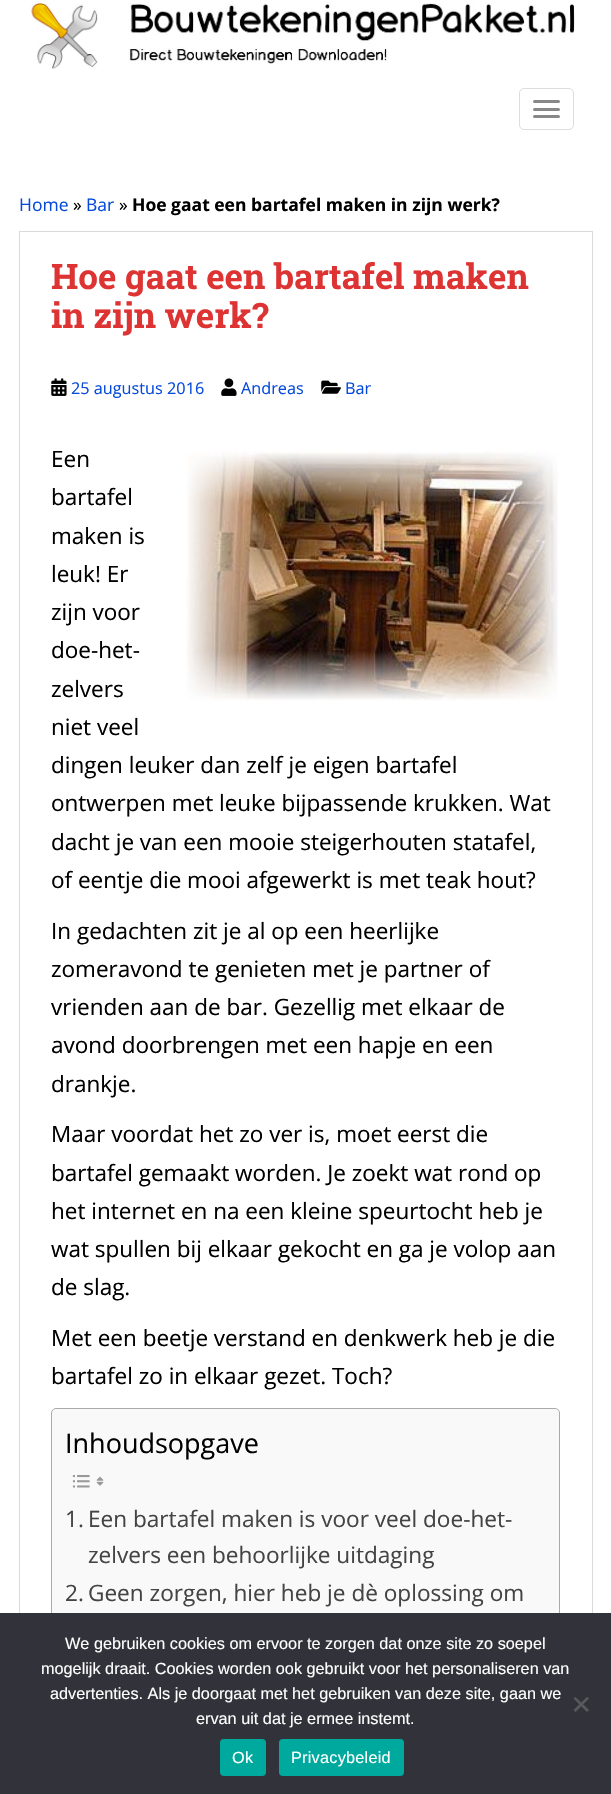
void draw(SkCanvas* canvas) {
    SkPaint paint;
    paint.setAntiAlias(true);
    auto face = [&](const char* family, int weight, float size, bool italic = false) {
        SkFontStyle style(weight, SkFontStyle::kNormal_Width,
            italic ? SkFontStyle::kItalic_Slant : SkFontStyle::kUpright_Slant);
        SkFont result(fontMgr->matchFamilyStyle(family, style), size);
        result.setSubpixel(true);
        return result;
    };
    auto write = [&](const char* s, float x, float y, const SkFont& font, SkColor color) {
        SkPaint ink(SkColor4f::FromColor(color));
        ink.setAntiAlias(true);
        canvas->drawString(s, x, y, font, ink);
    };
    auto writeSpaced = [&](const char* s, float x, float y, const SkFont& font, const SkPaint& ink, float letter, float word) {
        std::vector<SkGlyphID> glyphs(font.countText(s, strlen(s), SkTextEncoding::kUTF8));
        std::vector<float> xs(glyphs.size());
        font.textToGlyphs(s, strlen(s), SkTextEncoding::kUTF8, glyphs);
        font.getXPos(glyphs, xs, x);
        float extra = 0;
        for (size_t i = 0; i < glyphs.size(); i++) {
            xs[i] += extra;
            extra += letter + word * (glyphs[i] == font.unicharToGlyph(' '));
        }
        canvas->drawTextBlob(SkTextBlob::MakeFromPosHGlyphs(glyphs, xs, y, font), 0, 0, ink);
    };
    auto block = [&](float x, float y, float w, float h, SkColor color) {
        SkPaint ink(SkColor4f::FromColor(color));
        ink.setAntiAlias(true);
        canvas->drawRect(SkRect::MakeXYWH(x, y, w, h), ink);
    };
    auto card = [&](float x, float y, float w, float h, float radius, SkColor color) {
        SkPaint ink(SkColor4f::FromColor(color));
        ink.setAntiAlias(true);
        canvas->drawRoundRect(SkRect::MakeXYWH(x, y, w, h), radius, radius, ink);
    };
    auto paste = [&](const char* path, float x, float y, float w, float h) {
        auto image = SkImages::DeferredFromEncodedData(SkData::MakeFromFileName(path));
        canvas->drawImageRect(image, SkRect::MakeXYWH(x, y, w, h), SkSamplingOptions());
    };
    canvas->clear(SK_ColorWHITE);
    paste("pic1.png", 31, 0, 544, 69);
    paint.setStyle(SkPaint::kStroke_Style);
    paint.setStrokeWidth(1);
    paint.setColor(SkColorSetRGB(221, 221, 221));
    canvas->drawRoundRect(SkRect::MakeXYWH(519.5f, 88.5f, 54, 41), 4.5f, 4.5f, paint);
    card(533, 100, 27, 3, 1.5f, SkColorSetRGB(136, 136, 136));
    card(533, 108, 27, 3, 1.5f, SkColorSetRGB(136, 136, 136));
    card(533, 115, 27, 3, 1.5f, SkColorSetRGB(136, 136, 136));
    auto kFont1 = face("Open Sans", 400, 17.5f);
    write("Home", 19, 211, kFont1, SkColorSetRGB(5, 74, 218));
    write("»", 73, 211, kFont1, SK_ColorBLACK);
    write("Bar", 86, 211, kFont1, SkColorSetRGB(5, 74, 218));
    write("»", 119, 211, kFont1, SK_ColorBLACK);
    auto kFont2 = face("Open Sans", 700, 17.5f);
    write("Hoe gaat een bartafel maken in zijn werk?", 132, 211, kFont2, SK_ColorBLACK);
    paint.setColor(SkColorSetRGB(218, 218, 218));
    canvas->drawRect(SkRect::MakeXYWH(19.5f, 231.5f, 573, 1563), paint);
    auto kFont3 = face("Roboto Slab", 700, 35);
    write("Hoe gaat een bartafel maken", 51, 289, kFont3, SkColorSetRGB(221, 51, 51));
    write("in zijn werk?", 51, 328, kFont3, SkColorSetRGB(221, 51, 51));
    paste("pic2.png", 51, 378, 16, 18);
    auto kFont4 = face("Open Sans", 400, 16.25f);
    write("25 augustus 2016", 71, 394, kFont4, SkColorSetRGB(5, 74, 218));
    paste("pic3.png", 221, 378, 16, 18);
    write("Andreas", 241, 394, kFont4, SkColorSetRGB(5, 74, 218));
    paste("pic4.png", 321, 380, 20, 14);
    write("Bar", 345, 394, kFont4, SkColorSetRGB(5, 74, 218));
    auto kFont5 = face("Open Sans", 400, 22.5f);
    write("Een", 51, 467, kFont5, SK_ColorBLACK);
    write("bartafel", 51, 505, kFont5, SK_ColorBLACK);
    write("maken is", 51, 544, kFont5, SK_ColorBLACK);
    write("leuk! Er", 51, 582, kFont5, SK_ColorBLACK);
    write("zijn voor", 51, 620, kFont5, SK_ColorBLACK);
    write("doe-het-", 51, 658, kFont5, SK_ColorBLACK);
    write("zelvers", 51, 697, kFont5, SK_ColorBLACK);
    write("niet veel", 51, 735, kFont5, SK_ColorBLACK);
    write("dingen leuker dan zelf je eigen bartafel", 51, 773, kFont5, SK_ColorBLACK);
    write("ontwerpen met leuke bijpassende krukken. Wat", 51, 811, kFont5, SK_ColorBLACK);
    write("dacht je van een mooie steigerhouten statafel,", 51, 850, kFont5, SK_ColorBLACK);
    write("of eentje die mooi afgewerkt is met teak hout?", 51, 888, kFont5, SK_ColorBLACK);
    paste("pic5.png", 186, 451, 372, 250);
    write("In gedachten zit je al op een heerlijke", 51, 939, kFont5, SK_ColorBLACK);
    write("zomeravond te genieten met je partner of", 51, 977, kFont5, SK_ColorBLACK);
    write("vrienden aan de bar. Gezellig met elkaar de", 51, 1015, kFont5, SK_ColorBLACK);
    write("avond doorbrengen met een hapje en een", 51, 1053, kFont5, SK_ColorBLACK);
    write("drankje.", 51, 1092, kFont5, SK_ColorBLACK);
    write("Maar voordat het zo ver is, moet eerst die", 51, 1142, kFont5, SK_ColorBLACK);
    write("bartafel gemaakt worden. Je zoekt wat rond op", 51, 1181, kFont5, SK_ColorBLACK);
    write("het internet en na een kleine speurtocht heb je", 51, 1219, kFont5, SK_ColorBLACK);
    write("wat spullen bij elkaar gekocht en ga je volop aan", 51, 1257, kFont5, SK_ColorBLACK);
    write("de slag.", 51, 1295, kFont5, SK_ColorBLACK);
    write("Met een beetje verstand en denkwerk heb je die", 51, 1346, kFont5, SK_ColorBLACK);
    write("bartafel zo in elkaar gezet. Toch?", 51, 1384, kFont5, SK_ColorBLACK);
    paint.setStyle(SkPaint::kFill_Style);
    paint.setColor(SkColorSetRGB(249, 249, 249));
    canvas->drawRoundRect(SkRect::MakeXYWH(51.5f, 1408.5f, 508, 327), 4.5f, 4.5f, paint);
    paint.setStyle(SkPaint::kStroke_Style);
    paint.setColor(SkColorSetRGB(170, 170, 170));
    canvas->drawRoundRect(SkRect::MakeXYWH(51.5f, 1408.5f, 508, 327), 4.5f, 4.5f, paint);
    auto kFont6 = face("Open Sans", 400, 27);
    write("Inhoudsopgave", 65, 1453, kFont6, SK_ColorBLACK);
    paste("pic6.png", 72, 1475, 18, 13);
    paste("pic7.png", 96, 1476, 8, 10);
    auto kFont7 = face("Open Sans", 400, 22.6f);
    write("1.", 65, 1527, kFont7, SkColorSetRGB(68, 68, 68));
    write("Een bartafel maken is voor veel doe-het-", 88, 1527, kFont7, SkColorSetRGB(68, 68, 68));
    write("zelvers een behoorlijke uitdaging", 88, 1563, kFont7, SkColorSetRGB(68, 68, 68));
    write("2.", 65, 1601, kFont7, SkColorSetRGB(68, 68, 68));
    write("Geen zorgen, hier heb je dè oplossing om", 88, 1601, kFont7, SkColorSetRGB(68, 68, 68));
    block(0, 1613, 611, 181, SkColorSetRGB(50, 50, 58));
    auto kFont8 = face("Liberation Sans", 400, 16.25f);
    write("We gebruiken cookies om ervoor te zorgen dat onze site zo soepel", 65, 1649, kFont8, SK_ColorWHITE);
    write("mogelijk draait. Cookies worden ook gebruikt voor het personaliseren van", 41, 1674, kFont8, SK_ColorWHITE);
    write("advertenties. Als je doorgaat met het gebruiken van deze site, gaan we", 50, 1699, kFont8, SK_ColorWHITE);
    write("ervan uit dat je ermee instemt.", 196, 1724, kFont8, SK_ColorWHITE);
    paint.setStyle(SkPaint::kFill_Style);
    paint.setColor(SkColorSetRGB(89, 89, 93));
    canvas->drawPath(SkPathBuilder().moveTo(587, 1697).lineTo(589, 1698.5f).lineTo(575.5f, 1712).lineTo(573.5f, 1710).close().detach(), paint);
    canvas->drawPath(SkPathBuilder().moveTo(573.5f, 1698.5f).lineTo(575.5f, 1697).lineTo(589, 1710).lineTo(587, 1712).close().detach(), paint);
    card(220, 1739, 46, 37, 4, SkColorSetRGB(0, 169, 157));
    paint.setColor(SK_ColorWHITE);
    writeSpaced("Ok", 232, 1763, kFont8, paint, 0.25f, 0);
    card(279, 1739, 125, 37, 4, SkColorSetRGB(0, 169, 157));
    writeSpaced("Privacybeleid", 291, 1763, kFont8, paint, 0.25f, 0);
}
